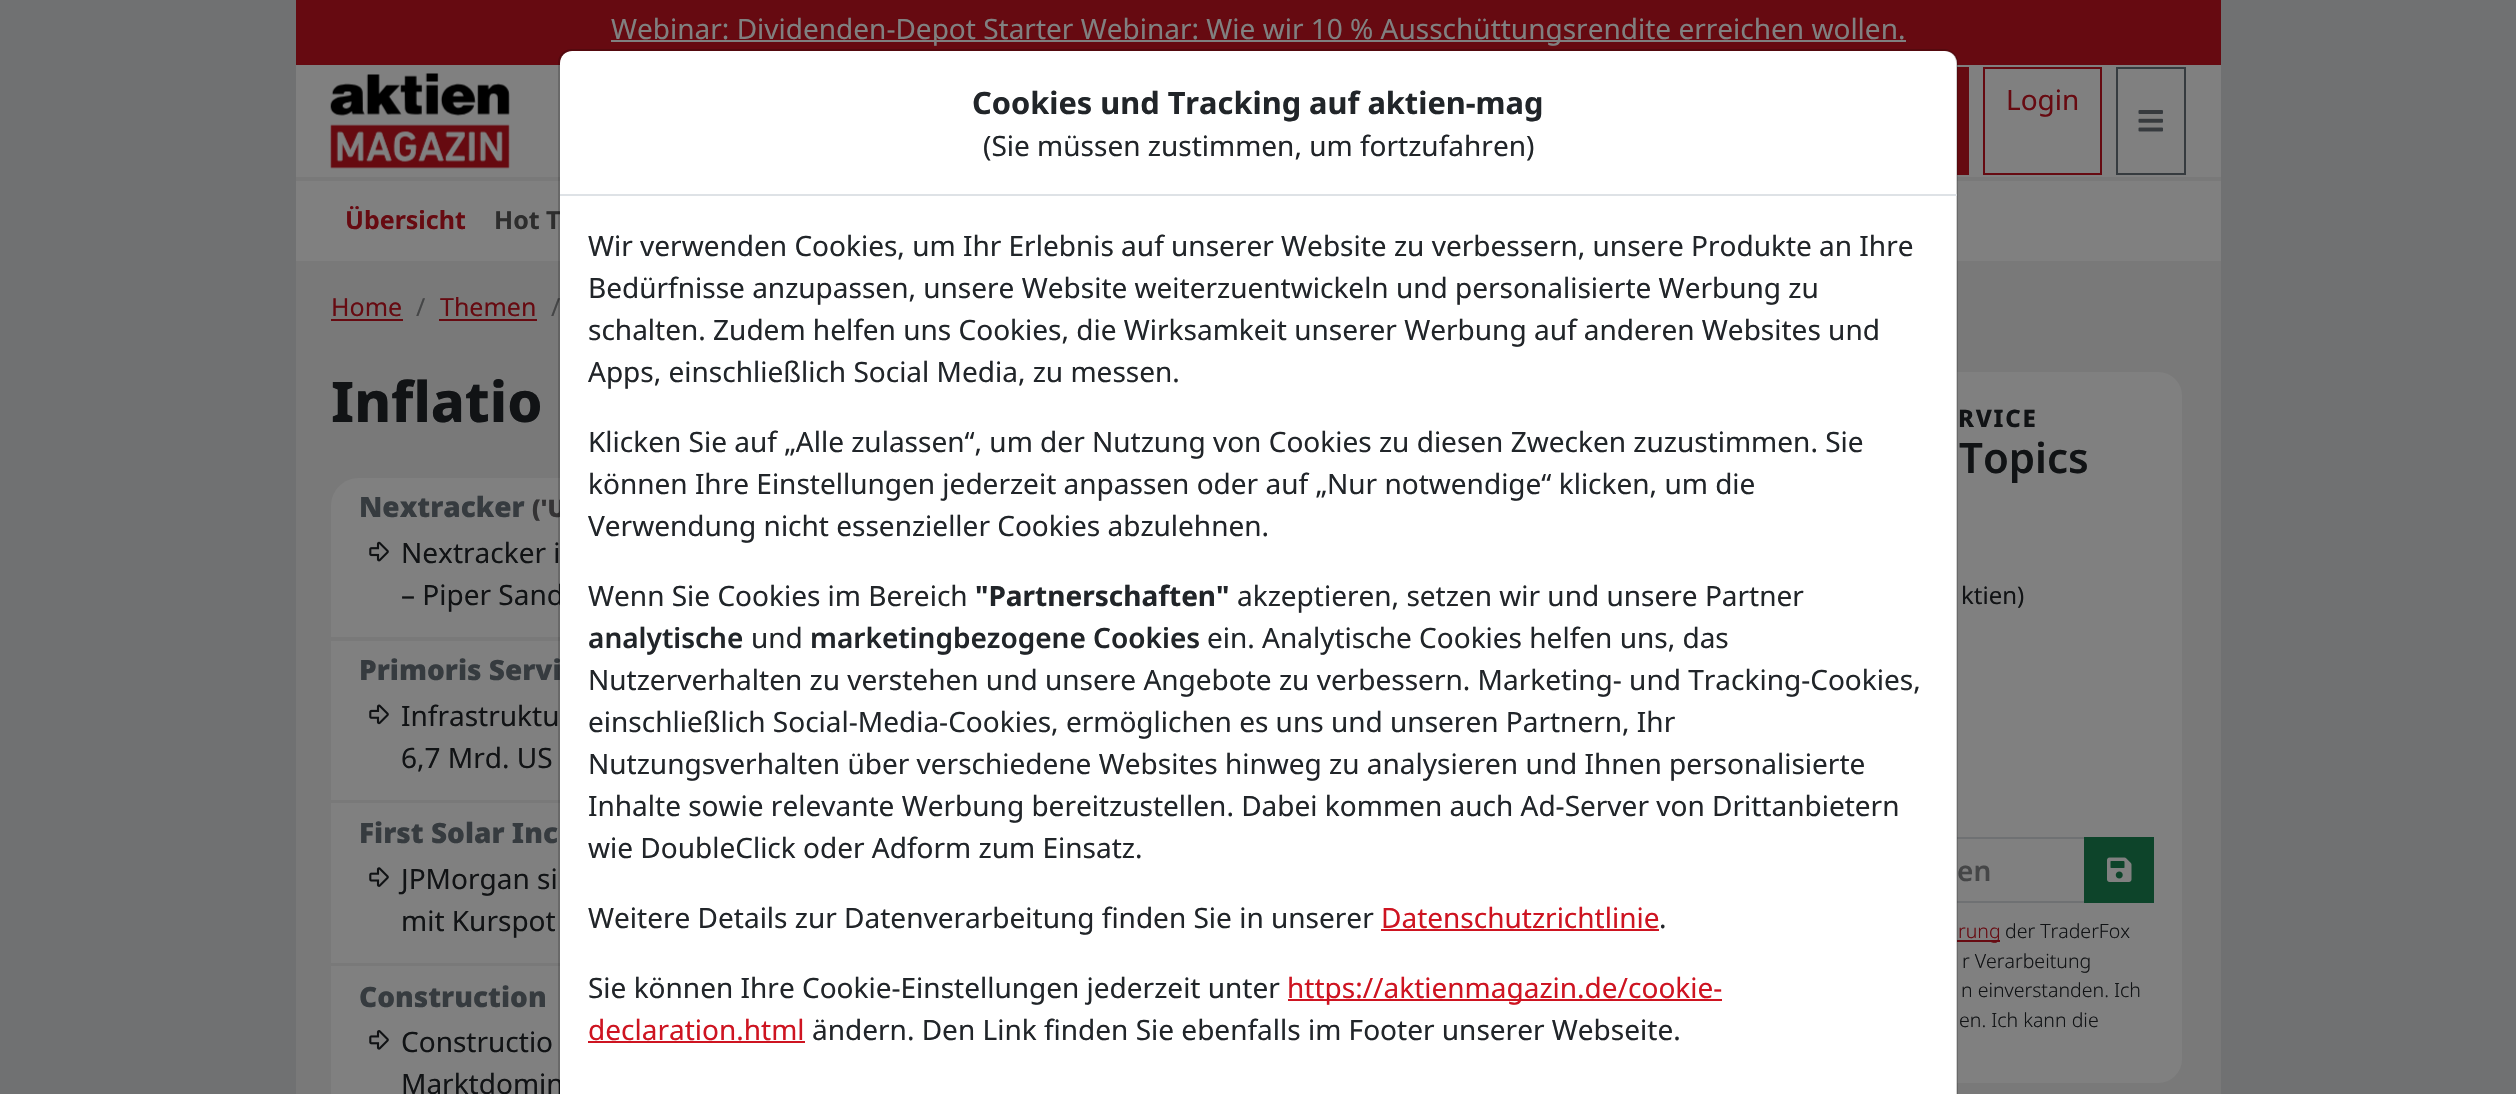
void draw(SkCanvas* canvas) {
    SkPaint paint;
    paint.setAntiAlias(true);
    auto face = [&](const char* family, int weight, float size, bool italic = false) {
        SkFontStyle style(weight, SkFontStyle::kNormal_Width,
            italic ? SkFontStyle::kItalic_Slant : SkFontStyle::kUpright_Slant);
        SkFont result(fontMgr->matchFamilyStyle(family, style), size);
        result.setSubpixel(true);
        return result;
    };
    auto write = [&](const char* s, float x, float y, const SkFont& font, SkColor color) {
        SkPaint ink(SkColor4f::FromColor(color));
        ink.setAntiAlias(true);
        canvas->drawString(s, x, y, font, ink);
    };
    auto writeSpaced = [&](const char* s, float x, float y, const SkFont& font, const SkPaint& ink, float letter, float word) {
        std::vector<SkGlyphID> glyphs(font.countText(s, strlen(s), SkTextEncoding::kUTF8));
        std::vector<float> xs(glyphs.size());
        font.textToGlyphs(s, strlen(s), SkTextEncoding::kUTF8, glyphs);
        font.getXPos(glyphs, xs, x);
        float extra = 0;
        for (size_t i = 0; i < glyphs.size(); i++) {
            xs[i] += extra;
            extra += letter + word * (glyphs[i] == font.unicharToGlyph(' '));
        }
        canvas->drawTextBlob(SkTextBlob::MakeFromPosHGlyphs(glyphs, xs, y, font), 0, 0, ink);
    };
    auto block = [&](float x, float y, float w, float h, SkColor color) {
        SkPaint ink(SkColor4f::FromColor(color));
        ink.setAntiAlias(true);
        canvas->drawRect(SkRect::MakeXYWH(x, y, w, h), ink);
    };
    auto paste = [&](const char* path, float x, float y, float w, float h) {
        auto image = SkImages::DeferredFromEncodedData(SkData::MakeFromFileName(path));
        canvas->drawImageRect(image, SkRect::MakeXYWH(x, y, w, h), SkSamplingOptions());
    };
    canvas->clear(SkColorSetRGB(112, 113, 114));
    block(296, 261, 1925, 833, SkColorSetRGB(121, 121, 121));
    block(296, 0, 1925, 65, SkColorSetRGB(102, 10, 17));
    block(611, 40, 1295, 2, SkColorSetRGB(128, 128, 128));
    auto kFont1 = face("Noto Sans", 400, 28);
    write("Webinar: Dividenden-Depot Starter Webinar: Wie wir 10 % Ausschüttungsrendite erreichen wollen.", 611, 39, kFont1, SkColorSetRGB(128, 128, 128));
    block(296, 65, 1925, 112, SkColorSetRGB(128, 128, 128));
    block(296, 177, 1925, 4, SkColorSetRGB(121, 121, 121));
    paste("pic1.png", 330, 73, 180, 96);
    block(1957, 67, 12, 108, SkColorSetRGB(102, 10, 17));
    paint.setStyle(SkPaint::kStroke_Style);
    paint.setStrokeWidth(2);
    paint.setColor(SkColorSetRGB(102, 10, 17));
    canvas->drawRect(SkRect::MakeXYWH(1984, 68, 117, 106), paint);
    write("Login", 2006, 110, kFont1, SkColorSetRGB(103, 10, 17));
    paint.setColor(SkColorSetRGB(54, 59, 63));
    canvas->drawRect(SkRect::MakeXYWH(2117, 68, 68, 106), paint);
    paste("pic2.png", 2138, 110, 25, 22);
    block(296, 181, 1925, 80, SkColorSetRGB(128, 128, 128));
    auto kFont2 = face("Noto Sans", 700, 25);
    write("Übersicht", 345, 229, kFont2, SkColorSetRGB(103, 10, 17));
    write("Hot T", 494, 229, kFont2, SkColorSetRGB(45, 45, 45));
    auto kFont3 = face("Noto Sans", 400, 25);
    write("Home", 331, 316, kFont3, SkColorSetRGB(103, 10, 17));
    block(331, 319, 72, 2, SkColorSetRGB(103, 10, 17));
    write("/", 416, 316, kFont3, SkColorSetRGB(69, 70, 71));
    write("Themen", 440, 316, kFont3, SkColorSetRGB(103, 10, 17));
    block(439, 319, 98, 2, SkColorSetRGB(103, 10, 17));
    write("/", 551, 316, kFont3, SkColorSetRGB(69, 70, 71));
    auto kFont4 = face("Noto Sans", 800, 56);
    write("Inflatio", 331, 422, kFont4, SkColorSetRGB(17, 19, 21));
    paint.setStyle(SkPaint::kFill_Style);
    paint.setColor(SkColorSetRGB(128, 128, 128));
    canvas->drawPath(SkPathBuilder().moveTo(359, 478).lineTo(1526, 478).cubicTo(1541.5f, 478, 1554, 490.5f, 1554, 506).lineTo(1554, 641).lineTo(331, 641).lineTo(331, 506).cubicTo(331, 490.5f, 343.5f, 478, 359, 478).close().detach(), paint);
    block(331, 637, 229, 4, SkColorSetRGB(121, 121, 121));
    auto kFont5 = face("Noto Sans", 900, 28);
    write("Nextracker", 359, 517, kFont5, SkColorSetRGB(54, 59, 63));
    auto kFont6 = face("Noto Sans", 900, 24);
    write("('U", 532, 517, kFont6, SkColorSetRGB(52, 51, 52));
    paste("pic3.png", 369, 541, 20, 21);
    write("Nextracker i", 401, 563, kFont1, SkColorSetRGB(17, 19, 21));
    write("– Piper Sand", 401, 605, kFont1, SkColorSetRGB(17, 19, 21));
    block(331, 641, 229, 159, SkColorSetRGB(128, 128, 128));
    write("Primoris Servi", 359, 680, kFont5, SkColorSetRGB(54, 59, 63));
    paste("pic4.png", 369, 704, 20, 21);
    write("Infrastruktu", 401, 726, kFont1, SkColorSetRGB(17, 19, 21));
    write("6,7 Mrd. US", 401, 768, kFont1, SkColorSetRGB(17, 19, 21));
    block(331, 803, 229, 160, SkColorSetRGB(128, 128, 128));
    write("First Solar Inc", 359, 843, kFont5, SkColorSetRGB(54, 59, 63));
    paste("pic5.png", 369, 867, 20, 20);
    write("JPMorgan si", 401, 889, kFont1, SkColorSetRGB(17, 19, 21));
    write("mit Kurspot", 401, 931, kFont1, SkColorSetRGB(17, 19, 21));
    block(331, 966, 229, 128, SkColorSetRGB(128, 128, 128));
    write("Construction", 359, 1007, kFont5, SkColorSetRGB(54, 59, 63));
    paste("pic6.png", 369, 1030, 20, 20);
    write("Constructio", 401, 1052, kFont1, SkColorSetRGB(17, 19, 21));
    write("Marktdomin", 401, 1094, kFont1, SkColorSetRGB(17, 19, 21));
    canvas->drawRoundRect(SkRect::MakeXYWH(1598, 370, 586, 715), 26, 26, paint);
    paint.setStyle(SkPaint::kStroke_Style);
    paint.setStrokeWidth(4);
    paint.setColor(SkColorSetRGB(121, 121, 121));
    canvas->drawRoundRect(SkRect::MakeXYWH(1598, 370, 586, 715), 26, 26, paint);
    auto kFont7 = face("Noto Sans", 800, 24);
    paint.setStyle(SkPaint::kFill_Style);
    paint.setColor(SkColorSetRGB(17, 19, 21));
    writeSpaced("RVICE", 1958, 427, kFont7, paint, 1.75f, 0);
    auto kFont8 = face("Noto Sans", 600, 42);
    write("Topics", 1959, 473, kFont8, SkColorSetRGB(17, 19, 21));
    auto kFont9 = face("Noto Sans", 400, 24);
    write("ktien)", 1961, 604, kFont9, SkColorSetRGB(17, 19, 21));
    paint.setStyle(SkPaint::kStroke_Style);
    paint.setStrokeWidth(2);
    paint.setColor(SkColorSetRGB(111, 113, 115));
    canvas->drawRect(SkRect::MakeXYWH(1629, 838, 456, 64), paint);
    auto kFont10 = face("Noto Sans", 600, 28);
    write("en", 1957, 881, kFont10, SkColorSetRGB(69, 70, 71));
    block(2084, 837, 70, 66, SkColorSetRGB(13, 68, 42));
    paste("pic7.png", 2107, 857, 25, 25);
    block(1957, 940, 43, 2, SkColorSetRGB(103, 10, 17));
    auto kFont11 = face("Noto Sans", 300, 19.5f);
    write("rung", 1958, 938, kFont11, SkColorSetRGB(103, 10, 17));
    write("der TraderFox", 2005, 938, kFont11, SkColorSetRGB(17, 19, 21));
    write("r Verarbeitung", 1962, 968, kFont11, SkColorSetRGB(17, 19, 21));
    write("n einverstanden. Ich", 1961, 997, kFont11, SkColorSetRGB(17, 19, 21));
    write("en. Ich kann die", 1959, 1027, kFont11, SkColorSetRGB(17, 19, 21));
    paint.setStyle(SkPaint::kFill_Style);
    paint.setColor(SK_ColorWHITE);
    canvas->drawPath(SkPathBuilder().moveTo(572, 51).lineTo(1945, 51).cubicTo(1951.5f, 51, 1957, 56.5f, 1957, 63).lineTo(1957, 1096).lineTo(560, 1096).lineTo(560, 63).cubicTo(560, 56.5f, 565.5f, 51, 572, 51).close().detach(), paint);
    paint.setStyle(SkPaint::kStroke_Style);
    paint.setColor(SkColorSetARGB(46, 0, 0, 0));
    canvas->drawRoundRect(SkRect::MakeXYWH(559, 50, 1398, 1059), 13, 13, paint);
    block(560, 194, 1397, 2, SkColorSetRGB(222, 226, 230));
    auto kFont12 = face("Noto Sans", 700, 30.75f);
    write("Cookies und Tracking auf aktien-mag", 972, 114, kFont12, SkColorSetRGB(33, 37, 41));
    write("(Sie müssen zustimmen, um fortzufahren)", 983, 156, kFont1, SkColorSetRGB(33, 37, 41));
    write("Wir verwenden Cookies, um Ihr Erlebnis auf unserer Website zu verbessern, unsere Produkte an Ihre", 588, 256, kFont1, SkColorSetRGB(33, 37, 41));
    write("Bedürfnisse anzupassen, unsere Website weiterzuentwickeln und personalisierte Werbung zu", 588, 298, kFont1, SkColorSetRGB(33, 37, 41));
    write("schalten. Zudem helfen uns Cookies, die Wirksamkeit unserer Werbung auf anderen Websites und", 588, 340, kFont1, SkColorSetRGB(33, 37, 41));
    write("Apps, einschließlich Social Media, zu messen.", 588, 382, kFont1, SkColorSetRGB(33, 37, 41));
    write("Klicken Sie auf „Alle zulassen“, um der Nutzung von Cookies zu diesen Zwecken zuzustimmen. Sie", 588, 452, kFont1, SkColorSetRGB(33, 37, 41));
    write("können Ihre Einstellungen jederzeit anpassen oder auf „Nur notwendige“ klicken, um die", 588, 494, kFont1, SkColorSetRGB(33, 37, 41));
    write("Verwendung nicht essenzieller Cookies abzulehnen.", 588, 536, kFont1, SkColorSetRGB(33, 37, 41));
    write("Wenn Sie Cookies im Bereich", 588, 606, kFont1, SkColorSetRGB(33, 37, 41));
    auto kFont13 = face("Noto Sans", 700, 28);
    write("\"Partnerschaften\"", 975, 606, kFont13, SkColorSetRGB(33, 37, 41));
    write("akzeptieren, setzen wir und unsere Partner", 1237, 606, kFont1, SkColorSetRGB(33, 37, 41));
    write("analytische", 588, 648, kFont10, SkColorSetRGB(33, 37, 41));
    write("und", 751, 648, kFont1, SkColorSetRGB(33, 37, 41));
    write("marketingbezogene Cookies", 810, 648, kFont10, SkColorSetRGB(33, 37, 41));
    write("ein. Analytische Cookies helfen uns, das", 1207, 648, kFont1, SkColorSetRGB(33, 37, 41));
    write("Nutzerverhalten zu verstehen und unsere Angebote zu verbessern. Marketing- und Tracking-Cookies,", 588, 690, kFont1, SkColorSetRGB(33, 37, 41));
    write("einschließlich Social-Media-Cookies, ermöglichen es uns und unseren Partnern, Ihr", 588, 732, kFont1, SkColorSetRGB(33, 37, 41));
    write("Nutzungsverhalten über verschiedene Websites hinweg zu analysieren und Ihnen personalisierte", 588, 774, kFont1, SkColorSetRGB(33, 37, 41));
    write("Inhalte sowie relevante Werbung bereitzustellen. Dabei kommen auch Ad-Server von Drittanbietern", 588, 816, kFont1, SkColorSetRGB(33, 37, 41));
    write("wie DoubleClick oder Adform zum Einsatz.", 588, 858, kFont1, SkColorSetRGB(33, 37, 41));
    write("Weitere Details zur Datenverarbeitung finden Sie in unserer", 588, 928, kFont1, SkColorSetRGB(33, 37, 41));
    write("Datenschutzrichtlinie", 1381, 928, kFont1, SkColorSetRGB(206, 20, 33));
    block(1381, 929, 278, 2, SkColorSetRGB(206, 20, 33));
    write(".", 1659, 928, kFont1, SkColorSetRGB(33, 37, 41));
    write("Sie können Ihre Cookie-Einstellungen jederzeit unter", 588, 998, kFont1, SkColorSetRGB(33, 37, 41));
    block(1288, 999, 434, 2, SkColorSetRGB(206, 20, 33));
    write("https://aktienmagazin.de/cookie-", 1287, 998, kFont1, SkColorSetRGB(206, 20, 33));
    write("declaration.html", 588, 1040, kFont1, SkColorSetRGB(206, 20, 33));
    block(588, 1041, 217, 2, SkColorSetRGB(206, 20, 33));
    write("ändern. Den Link finden Sie ebenfalls im Footer unserer Webseite.", 812, 1040, kFont1, SkColorSetRGB(33, 37, 41));
}
